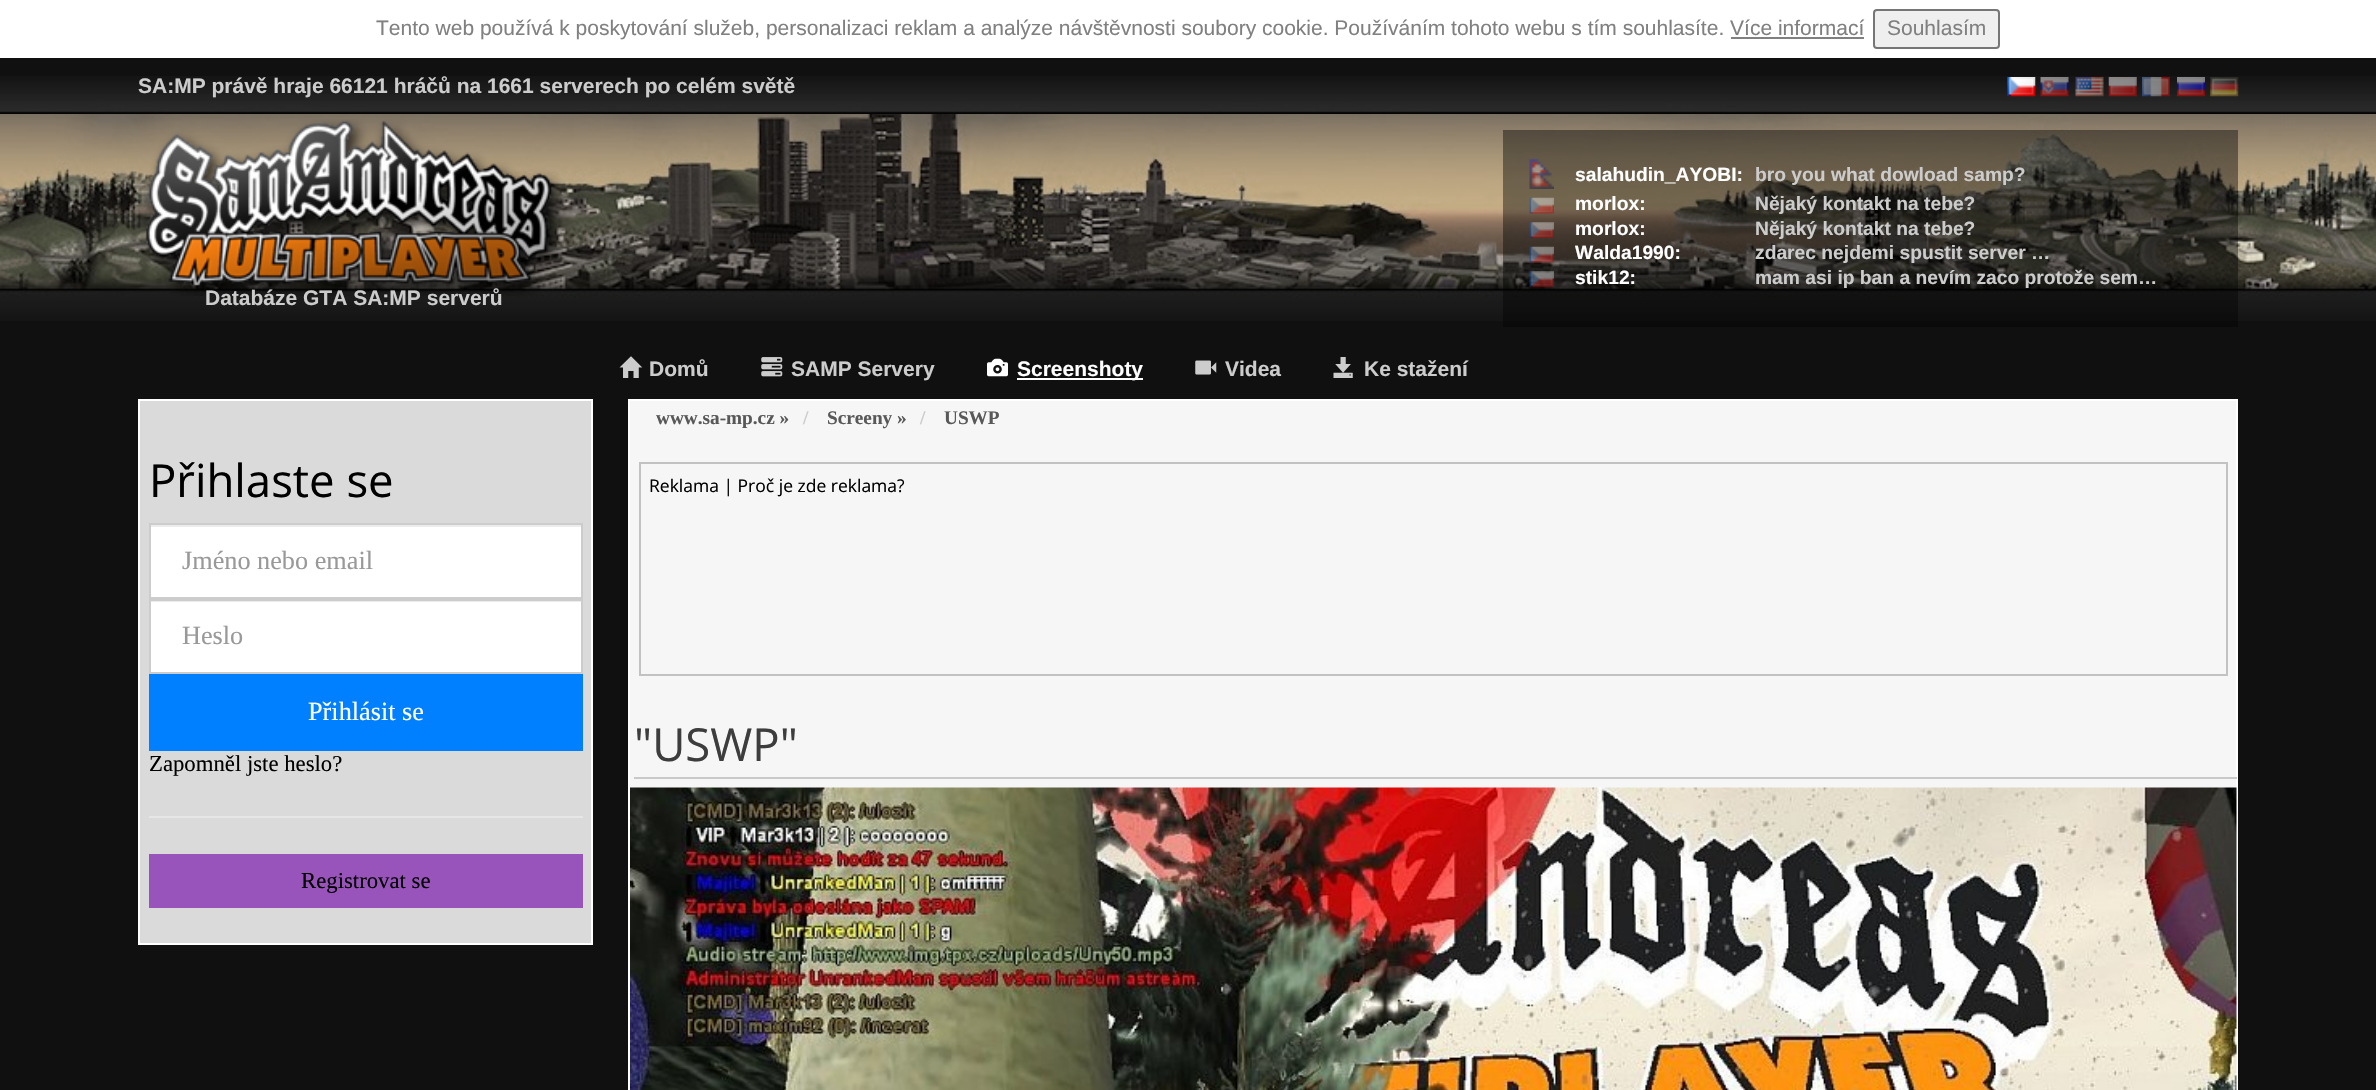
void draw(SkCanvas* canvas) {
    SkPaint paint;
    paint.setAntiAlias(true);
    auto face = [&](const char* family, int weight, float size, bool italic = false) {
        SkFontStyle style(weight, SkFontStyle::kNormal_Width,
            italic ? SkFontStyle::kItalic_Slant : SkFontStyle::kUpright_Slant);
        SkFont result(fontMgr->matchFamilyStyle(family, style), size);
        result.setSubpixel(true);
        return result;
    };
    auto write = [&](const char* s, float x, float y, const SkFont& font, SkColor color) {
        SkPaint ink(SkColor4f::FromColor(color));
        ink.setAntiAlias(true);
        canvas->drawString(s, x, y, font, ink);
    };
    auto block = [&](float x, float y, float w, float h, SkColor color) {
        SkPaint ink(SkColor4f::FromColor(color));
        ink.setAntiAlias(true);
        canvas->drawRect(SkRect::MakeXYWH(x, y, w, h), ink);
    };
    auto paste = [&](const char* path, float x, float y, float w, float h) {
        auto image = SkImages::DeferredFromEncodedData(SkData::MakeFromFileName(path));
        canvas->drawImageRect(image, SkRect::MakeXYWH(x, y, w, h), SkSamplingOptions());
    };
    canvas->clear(SkColorSetRGB(16, 16, 16));
    paste("pic1.png", 0, 114, 2376, 207);
    block(0, 0, 2376, 58, SK_ColorWHITE);
    auto kFont1 = face("Liberation Sans", 400, 21);
    write("Tento web používá k poskytování služeb, personalizaci reklam a analýze návštěvnosti soubory cookie. Používáním tohoto webu s tím souhlasíte. Více informací", 376, 35, kFont1, SkColorSetRGB(128, 128, 128));
    block(1731, 37, 133, 2, SkColorSetRGB(128, 128, 128));
    paint.setColor(SkColorSetRGB(239, 239, 239));
    canvas->drawRoundRect(SkRect::MakeXYWH(1874, 10, 125, 38), 3, 3, paint);
    paint.setStyle(SkPaint::kStroke_Style);
    paint.setStrokeWidth(2);
    paint.setColor(SkColorSetRGB(118, 118, 118));
    canvas->drawRoundRect(SkRect::MakeXYWH(1874, 10, 125, 38), 3, 3, paint);
    write("Souhlasím", 1887, 35, kFont1, SkColorSetRGB(128, 128, 128));
    paste("pic2.png", 0, 76, 2376, 38);
    auto kFont2 = face("Liberation Sans", 700, 21);
    write("SA:MP právě hraje 66121 hráčů na 1661 serverech po celém světě", 138, 93, kFont2, SkColorSetRGB(204, 204, 204));
    paste("pic3.png", 2007, 77, 29, 20);
    paste("pic4.png", 2040, 77, 29, 20);
    paste("pic5.png", 2075, 77, 29, 20);
    paste("pic6.png", 2108, 77, 29, 20);
    paste("pic7.png", 2142, 77, 28, 20);
    paste("pic8.png", 2177, 77, 28, 20);
    paste("pic9.png", 2210, 77, 29, 20);
    block(1503, 130, 735, 197, SkColorSetARGB(105, 0, 0, 0));
    paste("pic10.png", 1529, 159, 25, 30);
    auto kFont3 = face("Liberation Sans", 700, 19.25f);
    write("salahudin_AYOBI:", 1575, 181, kFont3, SK_ColorWHITE);
    write("bro you what dowload samp?", 1755, 181, kFont3, SkColorSetRGB(204, 204, 204));
    paste("pic11.png", 1529, 197, 25, 17);
    write("morlox:", 1575, 210, kFont3, SK_ColorWHITE);
    write("Nějaký kontakt na tebe?", 1755, 210, kFont3, SkColorSetRGB(204, 204, 204));
    paste("pic12.png", 1529, 222, 25, 16);
    write("morlox:", 1575, 235, kFont3, SK_ColorWHITE);
    write("Nějaký kontakt na tebe?", 1755, 235, kFont3, SkColorSetRGB(204, 204, 204));
    paste("pic13.png", 1529, 246, 25, 17);
    write("Walda1990:", 1575, 259, kFont3, SK_ColorWHITE);
    write("zdarec nejdemi spustit server …", 1755, 259, kFont3, SkColorSetRGB(204, 204, 204));
    paste("pic14.png", 1529, 271, 25, 16);
    write("stik12:", 1575, 284, kFont3, SK_ColorWHITE);
    write("mam asi ip ban a nevím zaco protože sem…", 1755, 284, kFont3, SkColorSetRGB(204, 204, 204));
    paste("pic15.png", 141, 119, 424, 177);
    write("Databáze GTA SA:MP serverů", 205, 305, kFont2, SkColorSetRGB(204, 204, 204));
    paste("pic16.png", 619, 356, 24, 22);
    write("Domů", 649, 376, kFont2, SkColorSetRGB(204, 204, 204));
    paste("pic17.png", 761, 357, 22, 20);
    write("SAMP Servery", 791, 376, kFont2, SkColorSetRGB(204, 204, 204));
    paste("pic18.png", 987, 358, 21, 19);
    block(1017, 378, 126, 2, SK_ColorWHITE);
    write("Screenshoty", 1017, 376, kFont2, SK_ColorWHITE);
    paste("pic19.png", 1195, 360, 22, 15);
    write("Videa", 1225, 376, kFont2, SkColorSetRGB(204, 204, 204));
    paste("pic20.png", 1333, 357, 20, 21);
    write("Ke stažení", 1364, 376, kFont2, SkColorSetRGB(204, 204, 204));
    paint.setStyle(SkPaint::kFill_Style);
    paint.setColor(SkColorSetRGB(218, 218, 218));
    canvas->drawRect(SkRect::MakeXYWH(139, 400, 453, 544), paint);
    paint.setStyle(SkPaint::kStroke_Style);
    paint.setColor(SK_ColorWHITE);
    canvas->drawRect(SkRect::MakeXYWH(139, 400, 453, 544), paint);
    auto kFont4 = face("Open Sans", 400, 45.5f);
    write("Přihlaste se", 149, 497, kFont4, SK_ColorBLACK);
    block(151, 527, 430, 70, SK_ColorWHITE);
    block(151, 525, 430, 2, SkColorSetRGB(236, 236, 236));
    paint.setColor(SkColorSetRGB(204, 204, 204));
    canvas->drawRect(SkRect::MakeXYWH(150, 524, 432, 74), paint);
    auto kFont5 = face("Liberation Serif", 400, 26.25f);
    write("Jméno nebo email", 182, 569, kFont5, SkColorSetRGB(153, 153, 153));
    block(151, 602, 430, 70, SK_ColorWHITE);
    block(151, 601, 430, 1, SkColorSetRGB(236, 236, 236));
    canvas->drawRect(SkRect::MakeXYWH(150, 600, 432, 73), paint);
    write("Heslo", 182, 644, kFont5, SkColorSetRGB(153, 153, 153));
    block(149, 674, 434, 77, SkColorSetRGB(0, 127, 255));
    write("Přihlásit se", 308, 720, kFont5, SK_ColorWHITE);
    auto kFont6 = face("Liberation Serif", 400, 22.75f);
    write("Zapomněl jste heslo?", 149, 771, kFont6, SK_ColorBLACK);
    block(149, 816, 434, 2, SkColorSetRGB(230, 230, 230));
    block(149, 854, 434, 54, SkColorSetRGB(153, 84, 187));
    write("Registrovat se", 301, 888, kFont6, SK_ColorBLACK);
    block(630, 401, 1606, 387, SkColorSetRGB(246, 246, 246));
    paint.setColor(SK_ColorWHITE);
    canvas->drawRect(SkRect::MakeXYWH(629, 400, 1608, 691), paint);
    auto kFont7 = face("Liberation Serif", 700, 19.25f);
    write("www.sa-mp.cz »", 656, 424, kFont7, SkColorSetRGB(88, 88, 88));
    write("/", 803, 424, kFont7, SkColorSetRGB(204, 204, 204));
    write("Screeny »", 827, 424, kFont7, SkColorSetRGB(88, 88, 88));
    write("/", 920, 424, kFont7, SkColorSetRGB(204, 204, 204));
    write("USWP", 944, 424, kFont7, SkColorSetRGB(88, 88, 88));
    paint.setColor(SkColorSetRGB(194, 194, 194));
    canvas->drawRect(SkRect::MakeXYWH(640, 463, 1587, 212), paint);
    auto kFont8 = face("Open Sans", 400, 17.5f);
    write("Reklama | Proč je zde reklama?", 649, 492, kFont8, SK_ColorBLACK);
    block(634, 777, 1603, 2, SkColorSetRGB(201, 201, 201));
    write("\"USWP\"", 634, 761, kFont4, SkColorSetRGB(61, 61, 61));
    paste("pic21.png", 630, 787, 1607, 303);
}
